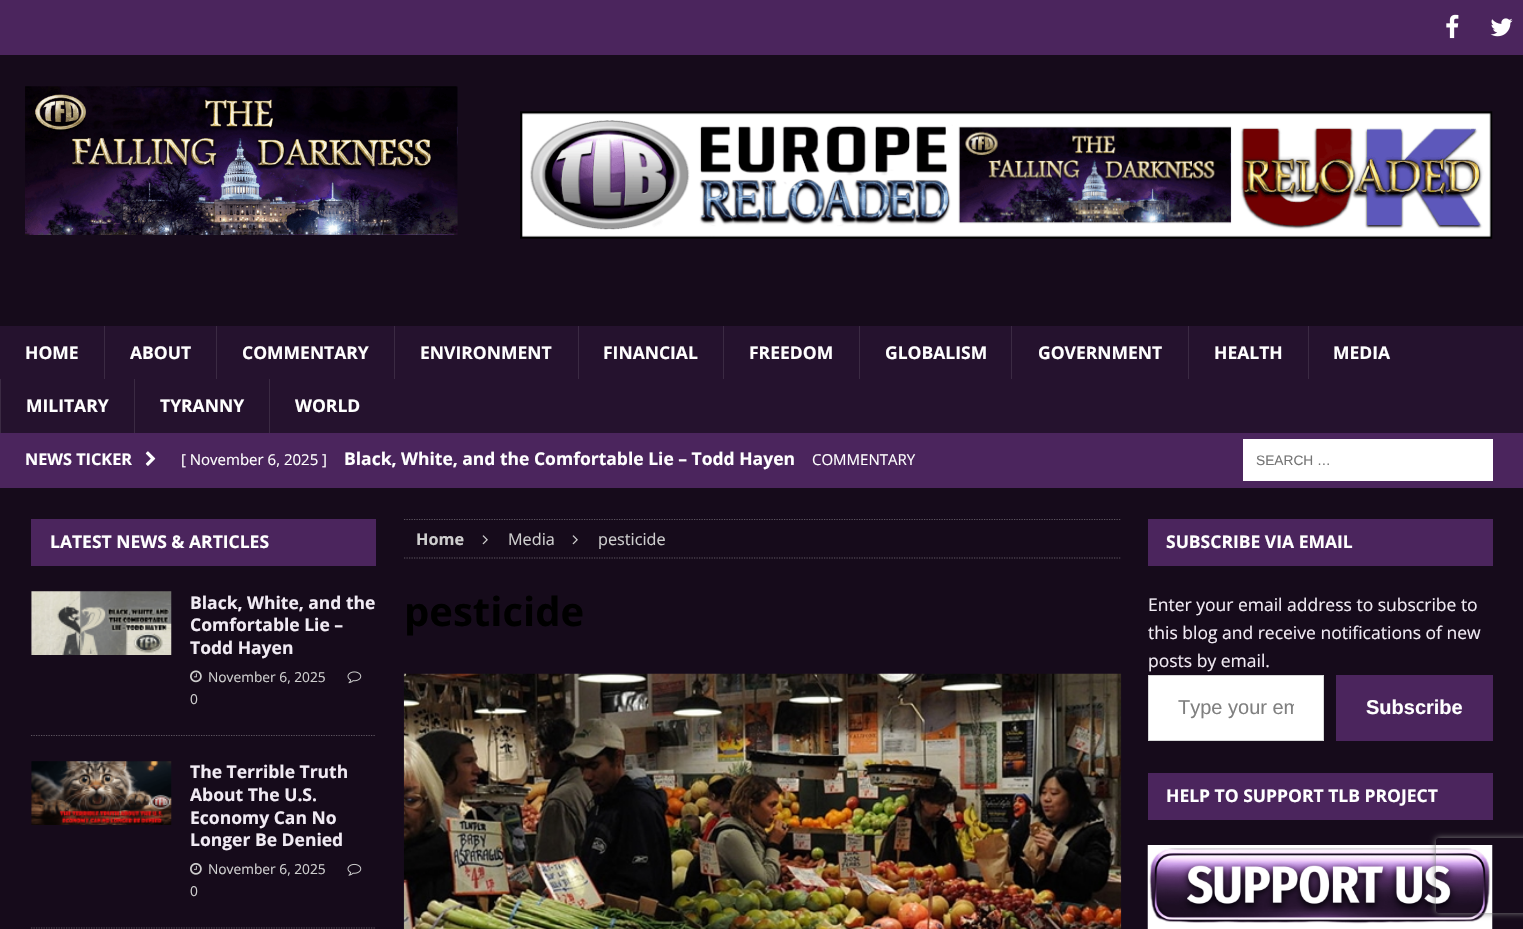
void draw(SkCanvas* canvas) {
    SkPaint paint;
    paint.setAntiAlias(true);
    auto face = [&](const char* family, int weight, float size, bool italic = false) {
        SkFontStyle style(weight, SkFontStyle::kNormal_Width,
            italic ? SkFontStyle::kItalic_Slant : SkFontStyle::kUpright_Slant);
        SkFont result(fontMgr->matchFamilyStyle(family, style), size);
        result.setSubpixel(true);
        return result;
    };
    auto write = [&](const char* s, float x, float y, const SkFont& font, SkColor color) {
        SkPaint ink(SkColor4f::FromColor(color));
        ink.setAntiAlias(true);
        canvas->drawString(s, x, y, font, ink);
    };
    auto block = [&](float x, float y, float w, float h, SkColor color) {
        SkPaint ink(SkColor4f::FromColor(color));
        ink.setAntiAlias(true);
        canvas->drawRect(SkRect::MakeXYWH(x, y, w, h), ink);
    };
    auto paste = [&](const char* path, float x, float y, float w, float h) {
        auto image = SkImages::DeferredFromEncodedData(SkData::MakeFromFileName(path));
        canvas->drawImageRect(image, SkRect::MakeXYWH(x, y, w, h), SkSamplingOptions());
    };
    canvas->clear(SkColorSetRGB(22, 11, 27));
    block(0, 0, 1523, 55, SkColorSetRGB(75, 37, 93));
    paste("pic1.png", 1446, 14, 13, 25);
    paste("pic2.png", 1490, 18, 23, 19);
    paste("pic3.png", 25, 86, 433, 149);
    paste("pic4.png", 520, 111, 973, 128);
    block(0, 326, 1523, 107, SkColorSetRGB(37, 18, 46));
    auto kFont1 = face("Open Sans", 700, 17.5f);
    write("HOME", 25, 359, kFont1, SK_ColorWHITE);
    block(104, 326, 1, 53, SkColorSetRGB(59, 42, 67));
    write("ABOUT", 130, 359, kFont1, SK_ColorWHITE);
    block(216, 326, 1, 53, SkColorSetRGB(59, 42, 67));
    write("COMMENTARY", 242, 359, kFont1, SK_ColorWHITE);
    block(394, 326, 1, 53, SkColorSetRGB(59, 42, 67));
    write("ENVIRONMENT", 420, 359, kFont1, SK_ColorWHITE);
    block(578, 326, 1, 53, SkColorSetRGB(59, 42, 67));
    write("FINANCIAL", 603, 359, kFont1, SK_ColorWHITE);
    block(723, 326, 1, 53, SkColorSetRGB(59, 42, 67));
    write("FREEDOM", 749, 359, kFont1, SK_ColorWHITE);
    block(859, 326, 1, 53, SkColorSetRGB(59, 42, 67));
    write("GLOBALISM", 885, 359, kFont1, SK_ColorWHITE);
    block(1011, 326, 1, 53, SkColorSetRGB(59, 42, 67));
    write("GOVERNMENT", 1038, 359, kFont1, SK_ColorWHITE);
    block(1188, 326, 1, 53, SkColorSetRGB(59, 42, 67));
    write("HEALTH", 1214, 359, kFont1, SK_ColorWHITE);
    block(1308, 326, 1, 53, SkColorSetRGB(59, 42, 67));
    write("MEDIA", 1333, 359, kFont1, SK_ColorWHITE);
    block(0, 379, 1, 54, SkColorSetRGB(59, 42, 67));
    write("MILITARY", 26, 412, kFont1, SK_ColorWHITE);
    block(134, 379, 1, 54, SkColorSetRGB(59, 42, 67));
    write("TYRANNY", 160, 412, kFont1, SK_ColorWHITE);
    block(269, 379, 1, 54, SkColorSetRGB(59, 42, 67));
    write("WORLD", 295, 412, kFont1, SK_ColorWHITE);
    block(0, 433, 1523, 55, SkColorSetRGB(75, 37, 93));
    auto kFont2 = face("Open Sans", 700, 16.25f);
    write("NEWS TICKER", 25, 465, kFont2, SK_ColorWHITE);
    paste("pic5.png", 145, 451, 11, 15);
    auto kFont3 = face("Open Sans", 400, 15);
    write("[ November 6, 2025 ]", 181, 465, kFont3, SK_ColorWHITE);
    write("Black, White, and the Comfortable Lie – Todd Hayen", 344, 465, kFont1, SK_ColorWHITE);
    write("COMMENTARY", 812, 465, kFont3, SK_ColorWHITE);
    block(1243, 439, 250, 42, SK_ColorWHITE);
    auto kFont4 = face("Liberation Sans", 400, 13.75f);
    write("SEARCH …", 1256, 465, kFont4, SkColorSetRGB(117, 117, 117));
    block(31, 519, 345, 47, SkColorSetRGB(75, 37, 93));
    write("LATEST NEWS & ARTICLES", 50, 548, kFont1, SK_ColorWHITE);
    paint.setStyle(SkPaint::kStroke_Style);
    paint.setStrokeWidth(1.2f);
    paint.setColor(SkColorSetRGB(92, 84, 95));
    paint.setPathEffect(SkDashPathEffect::Make({{1.25f, 1.25f}}, 0));
    canvas->drawPath(SkPathBuilder().moveTo(31, 735.5f).lineTo(376, 735.5f).detach(), paint);
    paint.setPathEffect(nullptr);
    paste("pic6.png", 31, 591, 141, 64);
    write("Black, White, and the", 190, 609, kFont1, SkColorSetRGB(241, 235, 244));
    write("Comfortable Lie –", 190, 631, kFont1, SkColorSetRGB(241, 235, 244));
    write("Todd Hayen", 190, 654, kFont1, SkColorSetRGB(241, 235, 244));
    paste("pic7.png", 190, 670, 12, 13);
    auto kFont5 = face("Open Sans", 400, 13.75f);
    write("November 6, 2025", 208, 682, kFont5, SkColorSetRGB(206, 206, 206));
    paste("pic8.png", 347, 671, 15, 13);
    write("0", 190, 704, kFont5, SkColorSetRGB(206, 206, 206));
    paint.setPathEffect(SkDashPathEffect::Make({{1.25f, 1.25f}}, 0));
    canvas->drawPath(SkPathBuilder().moveTo(31, 928).lineTo(376, 928).detach(), paint);
    paint.setPathEffect(nullptr);
    paste("pic9.png", 31, 761, 141, 64);
    write("The Terrible Truth", 190, 778, kFont1, SkColorSetRGB(241, 235, 244));
    write("About The U.S.", 190, 801, kFont1, SkColorSetRGB(241, 235, 244));
    write("Economy Can No", 190, 824, kFont1, SkColorSetRGB(241, 235, 244));
    write("Longer Be Denied", 190, 846, kFont1, SkColorSetRGB(241, 235, 244));
    paste("pic10.png", 190, 863, 12, 12);
    write("November 6, 2025", 208, 874, kFont5, SkColorSetRGB(206, 206, 206));
    paste("pic11.png", 347, 863, 15, 13);
    write("0", 190, 896, kFont5, SkColorSetRGB(206, 206, 206));
    canvas->save();
    canvas->clipRect(SkRect::MakeXYWH(404, 519, 717, 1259));
    paint.setPathEffect(SkDashPathEffect::Make({{1.25f, 1.25f}}, 0));
    canvas->drawPath(SkPathBuilder().moveTo(404, 519.5f).lineTo(1121, 519.5f).detach(), paint);
    paint.setPathEffect(nullptr);
    canvas->restore();
    paint.setPathEffect(SkDashPathEffect::Make({{1.25f, 1.25f}}, 0));
    canvas->drawPath(SkPathBuilder().moveTo(404, 558).lineTo(1121, 558).detach(), paint);
    paint.setPathEffect(nullptr);
    write("Home", 416, 545, kFont2, SkColorSetRGB(206, 206, 206));
    paste("pic12.png", 482, 535, 6, 10);
    auto kFont6 = face("Open Sans", 400, 16.25f);
    write("Media", 508, 545, kFont6, SkColorSetRGB(206, 206, 206));
    paste("pic12.png", 572, 535, 6, 10);
    write("pesticide", 598, 545, kFont6, SkColorSetRGB(206, 206, 206));
    auto kFont7 = face("Open Sans", 700, 40);
    write("pesticide", 404, 626, kFont7, SK_ColorBLACK);
    paste("pic13.png", 403, 673, 719, 256);
    block(1148, 519, 345, 47, SkColorSetRGB(75, 37, 93));
    write("SUBSCRIBE VIA EMAIL", 1166, 548, kFont1, SK_ColorWHITE);
    auto kFont8 = face("Open Sans", 400, 17.5f);
    write("Enter your email address to subscribe to", 1148, 611, kFont8, SkColorSetRGB(241, 235, 244));
    write("this blog and receive notifications of new", 1148, 639, kFont8, SkColorSetRGB(241, 235, 244));
    write("posts by email.", 1148, 667, kFont8, SkColorSetRGB(241, 235, 244));
    paint.setStyle(SkPaint::kFill_Style);
    paint.setColor(SK_ColorWHITE);
    canvas->drawRect(SkRect::MakeXYWH(1148.5f, 675.5f, 175, 65), paint);
    paint.setStyle(SkPaint::kStroke_Style);
    paint.setStrokeWidth(1);
    paint.setColor(SkColorSetRGB(215, 216, 216));
    canvas->drawRect(SkRect::MakeXYWH(1148.5f, 675.5f, 175, 65), paint);
    canvas->save();
    canvas->clipRect(SkRect::MakeXYWH(1178, 696, 116, 23));
    auto kFont9 = face("Liberation Sans", 400, 20);
    write("Type your em", 1178, 714, kFont9, SkColorSetRGB(128, 128, 128));
    canvas->restore();
    block(1336, 675, 157, 66, SkColorSetRGB(75, 37, 93));
    auto kFont10 = face("Liberation Sans", 700, 20);
    write("Subscribe", 1366, 714, kFont10, SK_ColorWHITE);
    block(1148, 773, 345, 47, SkColorSetRGB(75, 37, 93));
    write("HELP TO SUPPORT TLB PROJECT", 1166, 802, kFont1, SK_ColorWHITE);
    paste("pic14.png", 1147, 845, 346, 84);
    canvas->save();
    canvas->clipPath(SkPathBuilder(SkPathFillType::kEvenOdd).moveTo(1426, 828).lineTo(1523, 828).lineTo(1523, 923).lineTo(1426, 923).close().moveTo(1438.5f, 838).lineTo(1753.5f, 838).cubicTo(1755, 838, 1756, 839, 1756, 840.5f).lineTo(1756, 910.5f).cubicTo(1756, 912, 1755, 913, 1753.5f, 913).lineTo(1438.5f, 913).cubicTo(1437, 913, 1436, 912, 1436, 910.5f).lineTo(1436, 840.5f).cubicTo(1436, 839, 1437, 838, 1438.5f, 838).close().detach(), true);
    paint.setStyle(SkPaint::kFill_Style);
    paint.setColor(SkColorSetRGB(128, 128, 128));
    paint.setMaskFilter(SkMaskFilter::MakeBlur(kNormal_SkBlurStyle, 3));
    canvas->drawRoundRect(SkRect::MakeXYWH(1436, 838, 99, 75), 2.5f, 2.5f, paint);
    paint.setMaskFilter(nullptr);
    canvas->restore();
}
